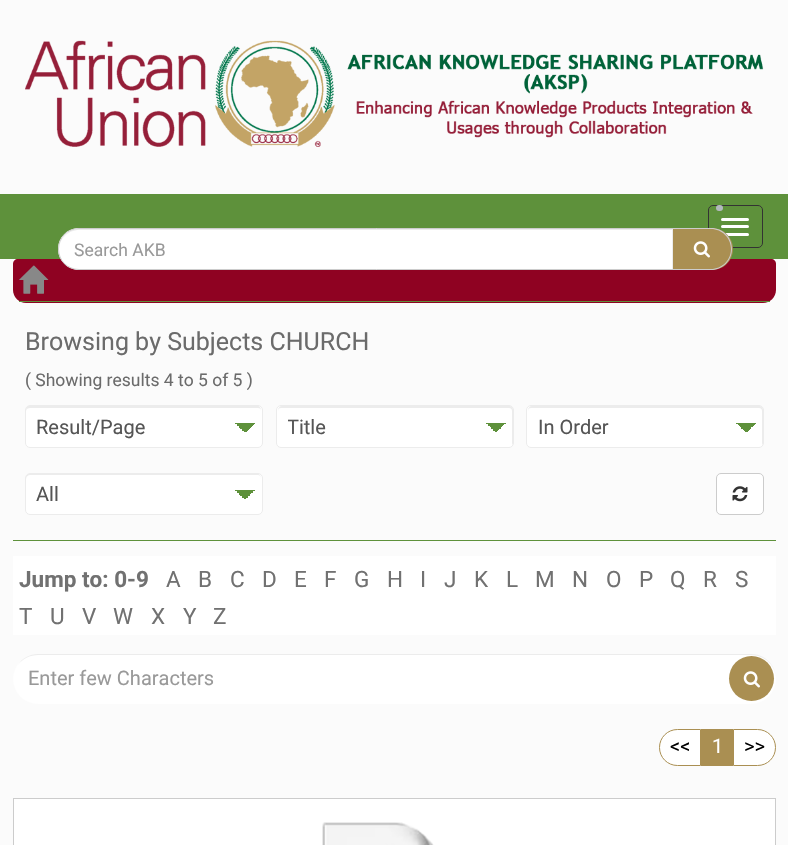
void draw(SkCanvas* canvas) {
    SkPaint paint;
    paint.setAntiAlias(true);
    auto face = [&](const char* family, int weight, float size, bool italic = false) {
        SkFontStyle style(weight, SkFontStyle::kNormal_Width,
            italic ? SkFontStyle::kItalic_Slant : SkFontStyle::kUpright_Slant);
        SkFont result(fontMgr->matchFamilyStyle(family, style), size);
        result.setSubpixel(true);
        return result;
    };
    auto write = [&](const char* s, float x, float y, const SkFont& font, SkColor color) {
        SkPaint ink(SkColor4f::FromColor(color));
        ink.setAntiAlias(true);
        canvas->drawString(s, x, y, font, ink);
    };
    auto block = [&](float x, float y, float w, float h, SkColor color) {
        SkPaint ink(SkColor4f::FromColor(color));
        ink.setAntiAlias(true);
        canvas->drawRect(SkRect::MakeXYWH(x, y, w, h), ink);
    };
    auto card = [&](float x, float y, float w, float h, float radius, SkColor color) {
        SkPaint ink(SkColor4f::FromColor(color));
        ink.setAntiAlias(true);
        canvas->drawRoundRect(SkRect::MakeXYWH(x, y, w, h), radius, radius, ink);
    };
    auto paste = [&](const char* path, float x, float y, float w, float h) {
        auto image = SkImages::DeferredFromEncodedData(SkData::MakeFromFileName(path));
        canvas->drawImageRect(image, SkRect::MakeXYWH(x, y, w, h), SkSamplingOptions());
    };
    canvas->clear(SkColorSetRGB(251, 251, 251));
    block(0, 194, 788, 65, SkColorSetRGB(94, 145, 59));
    paint.setStyle(SkPaint::kStroke_Style);
    paint.setStrokeWidth(1);
    paint.setColor(SkColorSetRGB(51, 51, 51));
    canvas->drawRoundRect(SkRect::MakeXYWH(708.5f, 205.5f, 54, 42), 4.5f, 4.5f, paint);
    card(721, 218, 28, 3, 1.5f, SK_ColorWHITE);
    card(721, 225, 28, 3, 1.5f, SK_ColorWHITE);
    card(721, 233, 28, 3, 1.5f, SK_ColorWHITE);
    card(716, 205, 7, 6, 3, SkColorSetRGB(179, 185, 191));
    paste("pic1.png", 25, 40, 739, 107);
    paint.setStyle(SkPaint::kFill_Style);
    paint.setColor(SkColorSetRGB(143, 2, 34));
    canvas->drawPath(SkPathBuilder().moveTo(18, 259).lineTo(771, 259).cubicTo(774, 259, 776, 261, 776, 264).lineTo(776, 290).cubicTo(776, 297, 770, 303, 763, 303).lineTo(26, 303).cubicTo(19, 303, 13, 297, 13, 290).lineTo(13, 264).cubicTo(13, 261, 15, 259, 18, 259).close().detach(), paint);
    paint.setColor(SK_ColorWHITE);
    canvas->drawPath(SkPathBuilder().moveTo(79, 228).lineTo(674, 228).lineTo(674, 270).lineTo(79, 270).cubicTo(67.5f, 270, 58, 260.5f, 58, 249).cubicTo(58, 237.5f, 67.5f, 228, 79, 228).close().detach(), paint);
    paint.setColor(SkColorSetRGB(236, 236, 236));
    canvas->drawPath(SkPathBuilder().moveTo(79, 230).lineTo(672, 230).lineTo(672, 269).lineTo(673, 269).lineTo(673, 229).lineTo(79, 229).cubicTo(68, 229, 59, 238, 59, 250).cubicTo(59, 239, 68, 230, 79, 230).close().detach(), paint);
    paint.setStyle(SkPaint::kStroke_Style);
    paint.setColor(SkColorSetRGB(204, 204, 204));
    canvas->drawPath(SkPathBuilder().moveTo(79, 228.5f).lineTo(673.5f, 228.5f).lineTo(673.5f, 269.5f).lineTo(79, 269.5f).cubicTo(67.5f, 269.5f, 58.5f, 260.5f, 58.5f, 249).cubicTo(58.5f, 237.5f, 67.5f, 228.5f, 79, 228.5f).close().detach(), paint);
    auto kFont1 = face("Roboto", 400, 17.5f);
    write("Search AKB", 74, 256, kFont1, SkColorSetRGB(153, 153, 153));
    paint.setStyle(SkPaint::kFill_Style);
    paint.setColor(SkColorSetRGB(170, 143, 82));
    canvas->drawPath(SkPathBuilder().moveTo(673, 228).lineTo(712, 228).cubicTo(723.5f, 228, 733, 237.5f, 733, 249).cubicTo(733, 260.5f, 723.5f, 270, 712, 270).lineTo(673, 270).close().detach(), paint);
    paint.setColor(SkColorSetRGB(204, 204, 204));
    canvas->drawPath(SkPathBuilder(SkPathFillType::kEvenOdd).moveTo(672, 228).lineTo(711, 228).cubicTo(723, 228, 732, 237, 732, 249).cubicTo(732, 260, 723, 270, 711, 270).lineTo(672, 270).close().moveTo(672, 229).lineTo(711, 229).cubicTo(722, 229, 731, 238, 731, 249).cubicTo(731, 260, 722, 269, 711, 269).lineTo(672, 269).close().detach(), paint);
    paste("pic2.png", 693, 241, 17, 17);
    block(19, 301, 751, 1, SkColorSetRGB(94, 145, 59));
    paste("pic3.png", 19, 265, 30, 29);
    block(13, 540, 763, 1, SkColorSetRGB(94, 145, 59));
    auto kFont2 = face("Roboto", 400, 25);
    write("Browsing by Subjects CHURCH", 25, 350, kFont2, SkColorSetRGB(107, 107, 107));
    write("( Showing results 4 to 5 of 5 )", 25, 386, kFont1, SkColorSetRGB(107, 107, 107));
    card(25, 405, 238, 43, 5, SK_ColorWHITE);
    {
        const SkColor colors[] = {SkColorSetRGB(94, 145, 59), SK_ColorWHITE};
        const float stops[] = {0.5f, 0.5f};
        const SkPoint ends[] = {{245, 423}, {255, 433}};
        paint.setShader(SkGradientShader::MakeLinear(ends, colors, stops, 2, SkTileMode::kClamp));
        paint.setAlpha(255);
    }
    canvas->drawRect(SkRect::MakeXYWH(245, 423, 10, 9), paint);
    {
        const SkColor colors[] = {SK_ColorWHITE, SkColorSetRGB(94, 145, 59)};
        const float stops[] = {0.5f, 0.5f};
        const SkPoint ends[] = {{235, 433}, {245, 423}};
        paint.setShader(SkGradientShader::MakeLinear(ends, colors, stops, 2, SkTileMode::kClamp));
        paint.setAlpha(255);
    }
    canvas->drawRect(SkRect::MakeXYWH(235, 423, 10, 9), paint);
    paint.setShader(nullptr);
    paint.setColor(SkColorSetRGB(236, 236, 236));
    canvas->drawPath(SkPathBuilder().moveTo(30, 408).lineTo(258, 408).cubicTo(260, 408, 261, 409, 261, 411).cubicTo(261, 408, 260, 406, 257, 406).lineTo(30, 406).cubicTo(27, 406, 26, 408, 26, 411).cubicTo(26, 409, 28, 408, 30, 408).close().detach(), paint);
    paint.setStyle(SkPaint::kStroke_Style);
    canvas->drawRoundRect(SkRect::MakeXYWH(25.5f, 405.5f, 237, 42), 4.5f, 4.5f, paint);
    auto kFont3 = face("Roboto", 400, 20);
    write("Result/Page", 36, 434, kFont3, SkColorSetRGB(85, 85, 85));
    card(276, 405, 238, 43, 5, SK_ColorWHITE);
    paint.setStyle(SkPaint::kFill_Style);
    {
        const SkColor colors[] = {SkColorSetRGB(94, 145, 59), SK_ColorWHITE};
        const float stops[] = {0.5f, 0.5f};
        const SkPoint ends[] = {{496, 423}, {506, 433}};
        paint.setShader(SkGradientShader::MakeLinear(ends, colors, stops, 2, SkTileMode::kClamp));
        paint.setAlpha(255);
    }
    canvas->drawRect(SkRect::MakeXYWH(496, 423, 10, 9), paint);
    {
        const SkColor colors[] = {SK_ColorWHITE, SkColorSetRGB(94, 145, 59)};
        const float stops[] = {0.5f, 0.5f};
        const SkPoint ends[] = {{486, 433}, {496, 423}};
        paint.setShader(SkGradientShader::MakeLinear(ends, colors, stops, 2, SkTileMode::kClamp));
        paint.setAlpha(255);
    }
    canvas->drawRect(SkRect::MakeXYWH(486, 423, 10, 9), paint);
    paint.setShader(nullptr);
    paint.setColor(SkColorSetRGB(236, 236, 236));
    canvas->drawPath(SkPathBuilder().moveTo(281, 408).lineTo(509, 408).cubicTo(511, 408, 512, 409, 512, 411).lineTo(512, 445).cubicTo(513, 444, 513, 443, 513, 442).lineTo(513, 410).cubicTo(513, 408, 511, 406, 509, 406).lineTo(282, 406).cubicTo(280, 406, 278, 408, 278, 410).lineTo(278, 411).cubicTo(278, 409, 279, 408, 281, 408).close().detach(), paint);
    paint.setStyle(SkPaint::kStroke_Style);
    canvas->drawRoundRect(SkRect::MakeXYWH(276.5f, 405.5f, 237, 42), 4.5f, 4.5f, paint);
    canvas->save();
    canvas->clipRect(SkRect::MakeXYWH(288, 413, 185, 30));
    write("Title", 287, 434, kFont3, SkColorSetRGB(85, 85, 85));
    canvas->restore();
    card(526, 405, 238, 43, 5, SK_ColorWHITE);
    paint.setStyle(SkPaint::kFill_Style);
    {
        const SkColor colors[] = {SkColorSetRGB(94, 145, 59), SK_ColorWHITE};
        const float stops[] = {0.5f, 0.5f};
        const SkPoint ends[] = {{746, 423}, {756, 433}};
        paint.setShader(SkGradientShader::MakeLinear(ends, colors, stops, 2, SkTileMode::kClamp));
        paint.setAlpha(255);
    }
    canvas->drawRect(SkRect::MakeXYWH(746, 423, 10, 9), paint);
    {
        const SkColor colors[] = {SK_ColorWHITE, SkColorSetRGB(94, 145, 59)};
        const float stops[] = {0.5f, 0.5f};
        const SkPoint ends[] = {{736, 433}, {746, 423}};
        paint.setShader(SkGradientShader::MakeLinear(ends, colors, stops, 2, SkTileMode::kClamp));
        paint.setAlpha(255);
    }
    canvas->drawRect(SkRect::MakeXYWH(736, 423, 10, 9), paint);
    paint.setShader(nullptr);
    paint.setColor(SkColorSetRGB(236, 236, 236));
    canvas->drawPath(SkPathBuilder().moveTo(531, 408).lineTo(759, 408).cubicTo(761, 408, 762, 409, 762, 411).lineTo(762, 445).cubicTo(763, 444, 763, 443, 763, 442).lineTo(763, 410).cubicTo(763, 408, 761, 406, 759, 406).lineTo(532, 406).cubicTo(530, 406, 528, 408, 528, 410).lineTo(528, 411).cubicTo(528, 409, 529, 408, 531, 408).close().detach(), paint);
    paint.setStyle(SkPaint::kStroke_Style);
    canvas->drawRoundRect(SkRect::MakeXYWH(526.5f, 405.5f, 237, 42), 4.5f, 4.5f, paint);
    write("In Order", 538, 434, kFont3, SkColorSetRGB(85, 85, 85));
    card(25, 473, 238, 42, 5, SK_ColorWHITE);
    paint.setStyle(SkPaint::kFill_Style);
    {
        const SkColor colors[] = {SkColorSetRGB(94, 145, 59), SK_ColorWHITE};
        const float stops[] = {0.5f, 0.5f};
        const SkPoint ends[] = {{245, 490}, {255, 500}};
        paint.setShader(SkGradientShader::MakeLinear(ends, colors, stops, 2, SkTileMode::kClamp));
        paint.setAlpha(255);
    }
    canvas->drawRect(SkRect::MakeXYWH(245, 490, 10, 9), paint);
    {
        const SkColor colors[] = {SK_ColorWHITE, SkColorSetRGB(94, 145, 59)};
        const float stops[] = {0.5f, 0.5f};
        const SkPoint ends[] = {{235, 500}, {245, 490}};
        paint.setShader(SkGradientShader::MakeLinear(ends, colors, stops, 2, SkTileMode::kClamp));
        paint.setAlpha(255);
    }
    canvas->drawRect(SkRect::MakeXYWH(235, 490, 10, 9), paint);
    paint.setShader(nullptr);
    paint.setColor(SkColorSetRGB(236, 236, 236));
    canvas->drawPath(SkPathBuilder().moveTo(30, 475).lineTo(258, 475).cubicTo(260, 475, 261, 477, 261, 479).cubicTo(261, 476, 260, 474, 257, 474).lineTo(30, 474).cubicTo(27, 474, 26, 476, 26, 479).cubicTo(26, 477, 28, 475, 30, 475).close().detach(), paint);
    paint.setStyle(SkPaint::kStroke_Style);
    canvas->drawRoundRect(SkRect::MakeXYWH(25.5f, 473.5f, 237, 41), 4.5f, 4.5f, paint);
    write("All", 36, 501, kFont3, SkColorSetRGB(85, 85, 85));
    paint.setStyle(SkPaint::kFill_Style);
    paint.setColor(SK_ColorWHITE);
    canvas->drawRoundRect(SkRect::MakeXYWH(716.5f, 473.5f, 47, 41), 4.5f, 4.5f, paint);
    paint.setStyle(SkPaint::kStroke_Style);
    paint.setColor(SkColorSetRGB(204, 204, 204));
    canvas->drawRoundRect(SkRect::MakeXYWH(716.5f, 473.5f, 47, 41), 4.5f, 4.5f, paint);
    paste("pic4.png", 732, 486, 16, 16);
    block(13, 556, 763, 79, SK_ColorWHITE);
    auto kFont4 = face("Roboto", 700, 22.5f);
    write("Jump to: 0-9", 19, 587, kFont4, SkColorSetRGB(113, 113, 113));
    auto kFont5 = face("Roboto", 400, 22.5f);
    write("A", 166, 587, kFont5, SkColorSetRGB(113, 113, 113));
    write("B", 198, 587, kFont5, SkColorSetRGB(113, 113, 113));
    write("C", 230, 587, kFont5, SkColorSetRGB(113, 113, 113));
    write("D", 262, 587, kFont5, SkColorSetRGB(113, 113, 113));
    write("E", 294, 587, kFont5, SkColorSetRGB(113, 113, 113));
    write("F", 324, 587, kFont5, SkColorSetRGB(113, 113, 113));
    write("G", 354, 587, kFont5, SkColorSetRGB(113, 113, 113));
    write("H", 387, 587, kFont5, SkColorSetRGB(113, 113, 113));
    write("I", 420, 587, kFont5, SkColorSetRGB(113, 113, 113));
    write("J", 444, 587, kFont5, SkColorSetRGB(113, 113, 113));
    write("K", 474, 587, kFont5, SkColorSetRGB(113, 113, 113));
    write("L", 506, 587, kFont5, SkColorSetRGB(113, 113, 113));
    write("M", 535, 587, kFont5, SkColorSetRGB(113, 113, 113));
    write("N", 572, 587, kFont5, SkColorSetRGB(113, 113, 113));
    write("O", 606, 587, kFont5, SkColorSetRGB(113, 113, 113));
    write("P", 639, 587, kFont5, SkColorSetRGB(113, 113, 113));
    write("Q", 670, 587, kFont5, SkColorSetRGB(113, 113, 113));
    write("R", 703, 587, kFont5, SkColorSetRGB(113, 113, 113));
    write("S", 735, 587, kFont5, SkColorSetRGB(113, 113, 113));
    write("T", 19, 624, kFont5, SkColorSetRGB(113, 113, 113));
    write("U", 50, 624, kFont5, SkColorSetRGB(113, 113, 113));
    write("V", 82, 624, kFont5, SkColorSetRGB(113, 113, 113));
    write("W", 113, 624, kFont5, SkColorSetRGB(113, 113, 113));
    write("X", 151, 624, kFont5, SkColorSetRGB(113, 113, 113));
    write("Y", 183, 624, kFont5, SkColorSetRGB(113, 113, 113));
    write("Z", 213, 624, kFont5, SkColorSetRGB(113, 113, 113));
    card(13, 654, 763, 50, 25, SK_ColorWHITE);
    paint.setStyle(SkPaint::kFill_Style);
    paint.setColor(SkColorSetRGB(236, 236, 236));
    canvas->drawPath(SkPathBuilder().moveTo(38, 655).lineTo(751, 655).cubicTo(765, 655, 776, 666, 776, 679).cubicTo(776, 665, 765, 654, 751, 654).lineTo(38, 654).cubicTo(30, 654, 22, 658, 18, 665).cubicTo(22, 659, 30, 655, 38, 655).close().detach(), paint);
    write("Enter few Characters", 28, 685, kFont3, SkColorSetRGB(153, 153, 153));
    paint.setColor(SkColorSetRGB(170, 143, 82));
    canvas->drawCircle(751.5f, 678.5f, 22.5f, paint);
    paste("pic2.png", 743, 671, 17, 17);
    paint.setColor(SK_ColorWHITE);
    canvas->drawPath(SkPathBuilder().moveTo(677.5f, 729.5f).lineTo(700.5f, 729.5f).lineTo(700.5f, 765.5f).lineTo(677.5f, 765.5f).cubicTo(667.5f, 765.5f, 659.5f, 757.5f, 659.5f, 747.5f).cubicTo(659.5f, 737.5f, 667.5f, 729.5f, 677.5f, 729.5f).close().detach(), paint);
    paint.setStyle(SkPaint::kStroke_Style);
    paint.setColor(SkColorSetRGB(170, 143, 82));
    canvas->drawPath(SkPathBuilder().moveTo(677.5f, 729.5f).lineTo(700.5f, 729.5f).lineTo(700.5f, 765.5f).lineTo(677.5f, 765.5f).cubicTo(667.5f, 765.5f, 659.5f, 757.5f, 659.5f, 747.5f).cubicTo(659.5f, 737.5f, 667.5f, 729.5f, 677.5f, 729.5f).close().detach(), paint);
    write("<<", 670, 753, kFont3, SK_ColorBLACK);
    block(701, 729, 32, 37, SkColorSetRGB(170, 143, 82));
    write("1", 712, 753, kFont3, SK_ColorWHITE);
    paint.setStyle(SkPaint::kFill_Style);
    paint.setColor(SK_ColorWHITE);
    canvas->drawPath(SkPathBuilder().moveTo(733.5f, 729.5f).lineTo(757.5f, 729.5f).cubicTo(767.5f, 729.5f, 775.5f, 737.5f, 775.5f, 747.5f).cubicTo(775.5f, 757.5f, 767.5f, 765.5f, 757.5f, 765.5f).lineTo(733.5f, 765.5f).close().detach(), paint);
    paint.setStyle(SkPaint::kStroke_Style);
    paint.setColor(SkColorSetRGB(170, 143, 82));
    canvas->drawPath(SkPathBuilder().moveTo(733.5f, 729.5f).lineTo(757.5f, 729.5f).cubicTo(767.5f, 729.5f, 775.5f, 737.5f, 775.5f, 747.5f).cubicTo(775.5f, 757.5f, 767.5f, 765.5f, 757.5f, 765.5f).lineTo(733.5f, 765.5f).close().detach(), paint);
    write(">>", 744, 753, kFont3, SK_ColorBLACK);
    paint.setStyle(SkPaint::kFill_Style);
    paint.setColor(SK_ColorWHITE);
    canvas->drawRect(SkRect::MakeXYWH(13.5f, 798.5f, 762, 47), paint);
    paint.setStyle(SkPaint::kStroke_Style);
    paint.setColor(SkColorSetRGB(204, 204, 204));
    canvas->drawRect(SkRect::MakeXYWH(13.5f, 798.5f, 762, 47), paint);
    paste("pic5.png", 322, 822, 112, 23);
}
